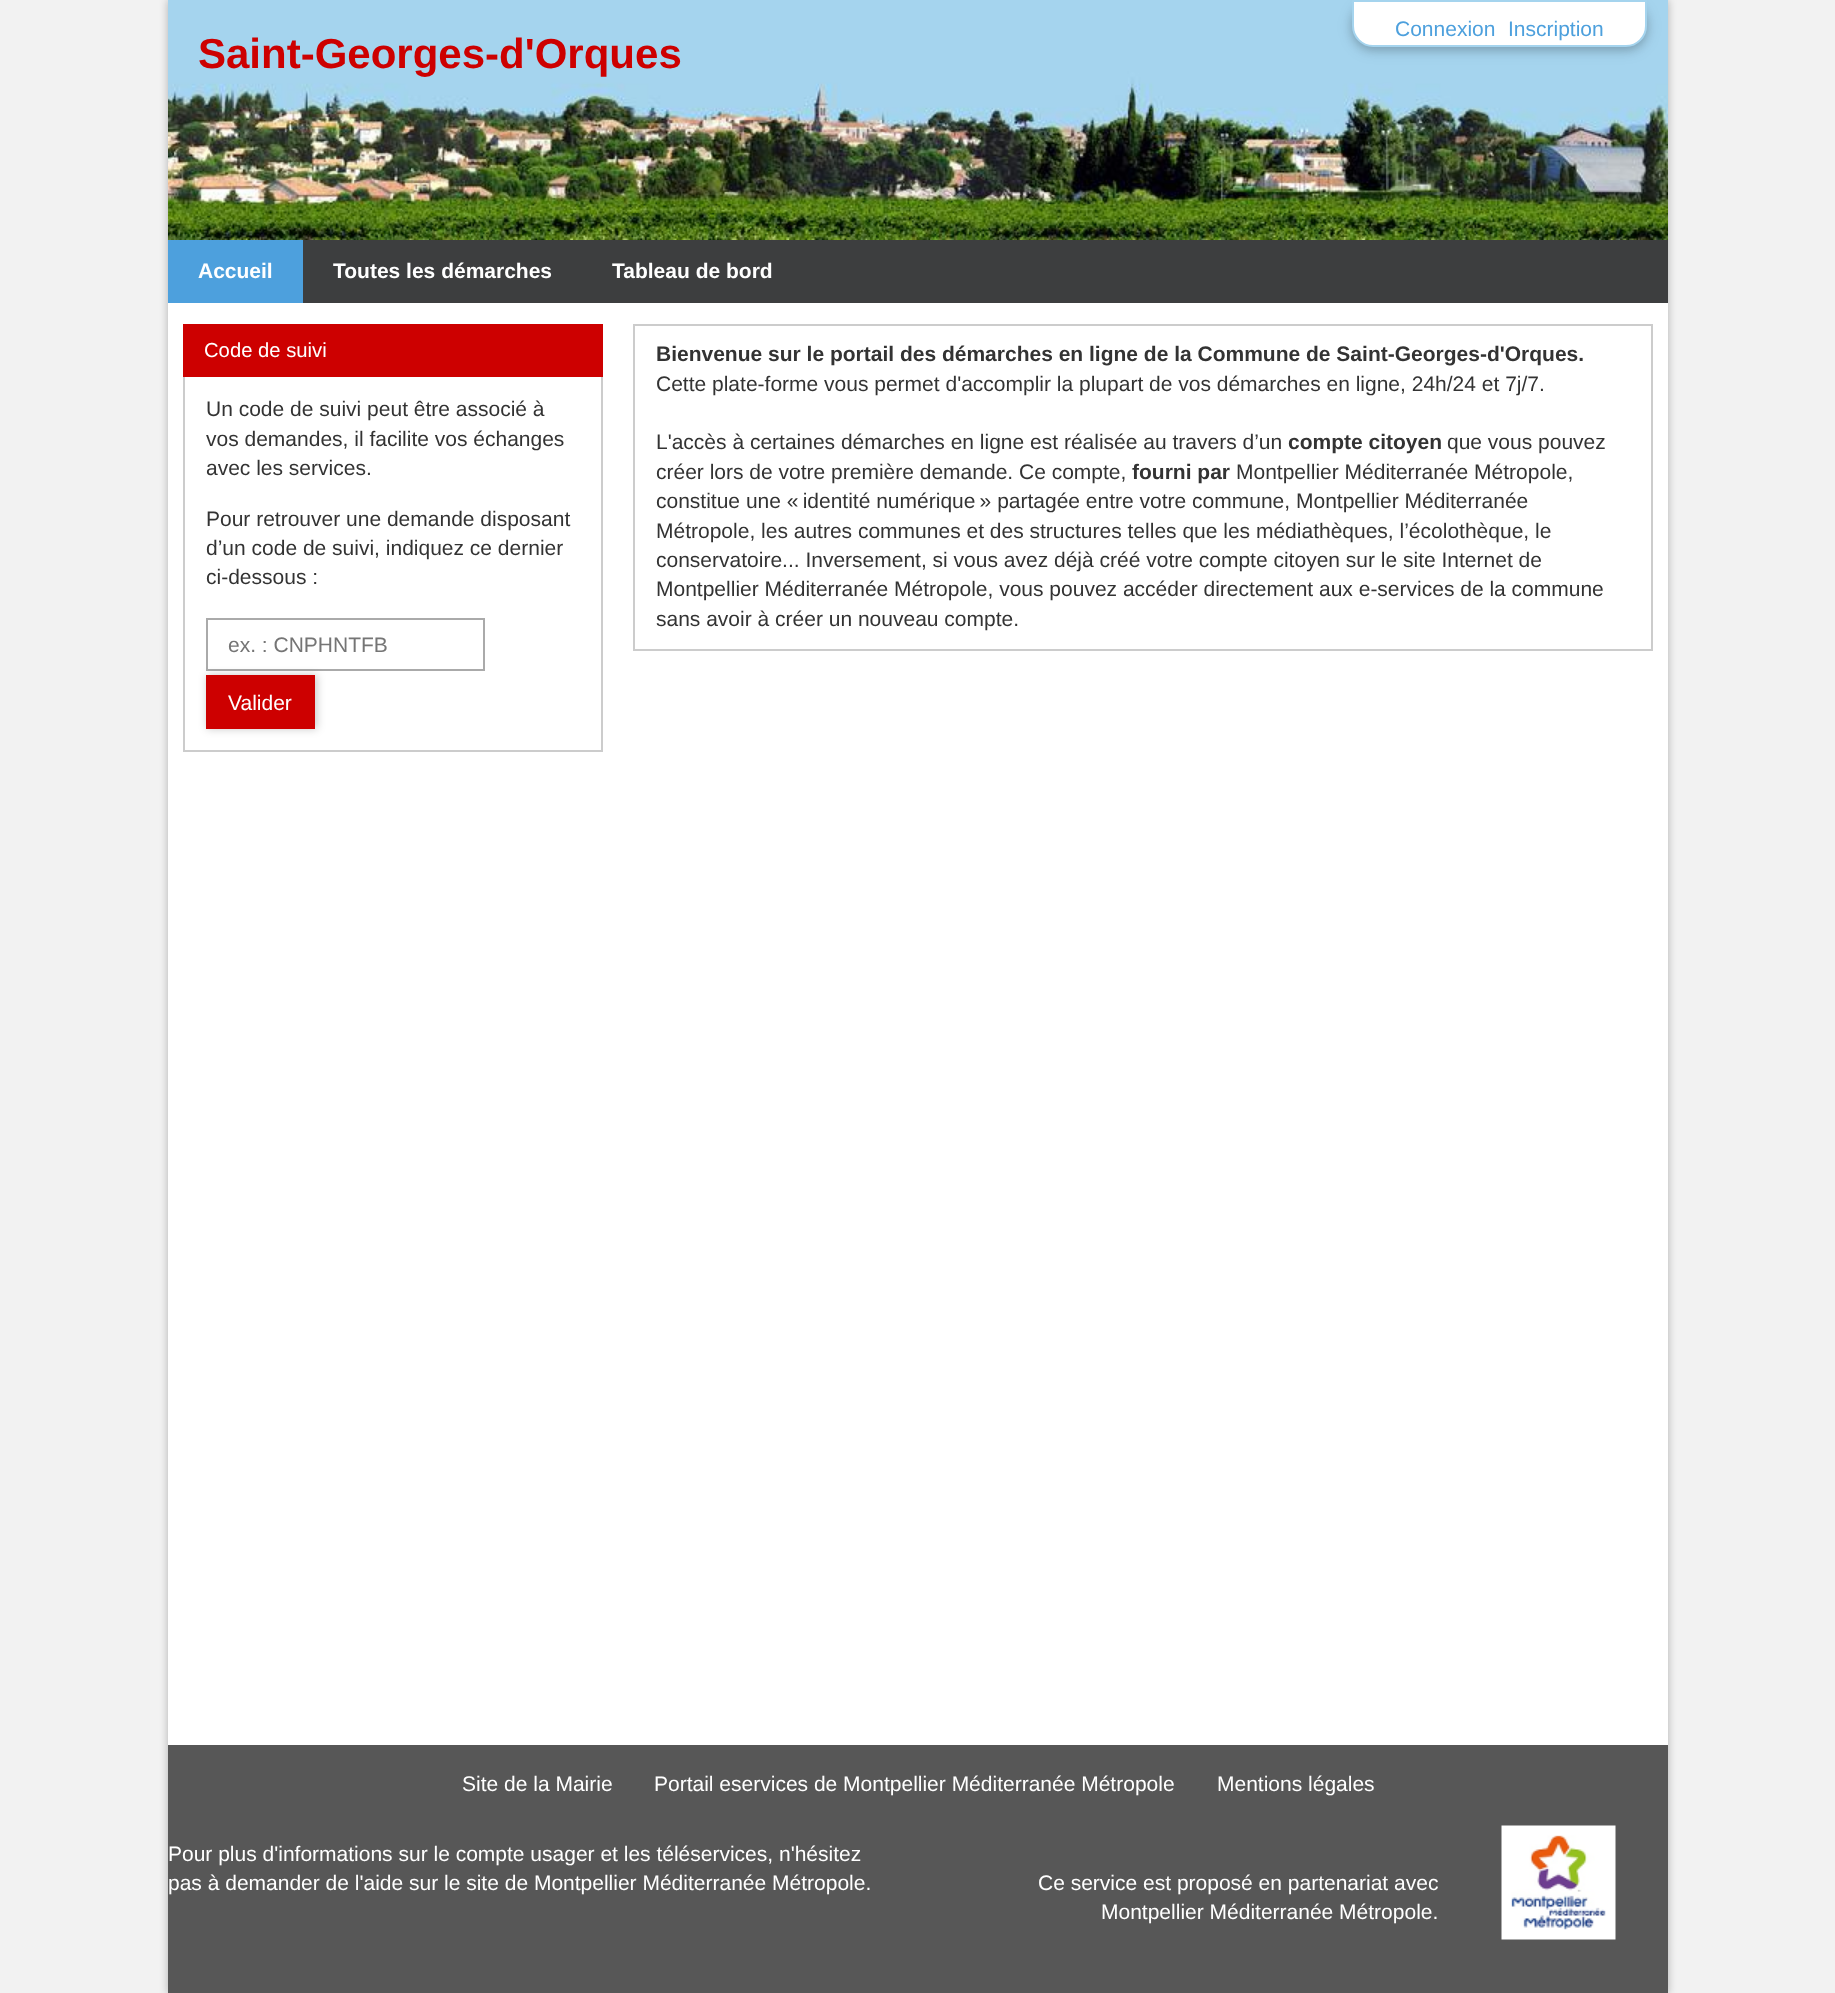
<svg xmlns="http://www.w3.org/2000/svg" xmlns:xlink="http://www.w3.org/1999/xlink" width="1835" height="1993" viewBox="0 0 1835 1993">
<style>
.cls-1{font:21px Liberation Sans;fill:#4da0dd}
.cls-2{font:bold 42px Liberation Sans;fill:#cd0000}
.cls-3{font:bold 21px Liberation Sans;fill:#ffffff}
.cls-4{font:20.25px Liberation Sans;fill:#ffffff}
.cls-5{font:21px Liberation Sans;fill:#333333}
.cls-6{font:21px Liberation Sans;fill:#757575}
.cls-7{font:21px Liberation Sans;fill:#ffffff}
.cls-8{font:bold 21px Liberation Sans;fill:#333333}
</style>
<rect width="100%" height="100%" fill="#f2f2f2"/>
<rect fill="#000000" fill-opacity="0.27" filter="blur(4px)" x="168" y="0" width="1500" height="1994"/>
<rect fill="#ffffff" x="168" y="303" width="1500" height="1442"/>
<image xlink:href="image0.png" x="168" y="0" width="1500" height="240"/>
<rect fill="#000000" fill-opacity="0.12" filter="blur(7.5px)" x="1352" y="3" width="295" height="47" rx="21"/>
<rect fill="#000000" fill-opacity="0.16" filter="blur(4px)" x="1352" y="3" width="295" height="47" rx="21"/>
<path fill="#ffffff" stroke="#a5d4ee" stroke-width="2" d="M1353 1H1646V26C1646 37 1637 46 1626 46H1373C1362 46 1353 37 1353 26Z"/>
<rect fill="#3d3e3f" x="303" y="240" width="1365" height="63"/>
<rect fill="#4da0dd" x="168" y="240" width="135" height="63"/>
<rect fill="none" stroke="#cccccc" stroke-width="2" x="184" y="325" width="418" height="426"/>
<rect fill="#cd0000" x="183" y="324" width="420" height="53"/>
<rect fill="none" stroke="#aaaaaa" stroke-width="2" x="207" y="619" width="277" height="51"/>
<rect fill="#000000" fill-opacity="0.21" filter="blur(4px)" x="207" y="675" width="110" height="54"/>
<rect fill="#cd0000" x="206" y="675" width="109" height="54"/>
<rect fill="none" stroke="#cccccc" stroke-width="2" x="634" y="325" width="1018" height="325"/>
<rect fill="#575757" x="168" y="1745" width="1500" height="248"/>
<image xlink:href="image1.png" x="1501" y="1825" width="115" height="115"/>
<text class="cls-1" x="1395" y="36">Connexion</text>
<text class="cls-1" x="1508" y="36">Inscription</text>
<text class="cls-2" x="198" y="68">Saint-Georges-d'Orques</text>
<text class="cls-3" x="198" y="278">Accueil</text>
<text class="cls-3" x="333" y="278">Toutes les démarches</text>
<text class="cls-3" x="612" y="278">Tableau de bord</text>
<text class="cls-4" x="204" y="357">Code de suivi</text>
<text class="cls-5"><tspan x="206" y="416">Un code de suivi peut être associé à</tspan><tspan x="206" y="446">vos demandes, il facilite vos échanges</tspan><tspan x="206" y="475">avec les services.</tspan></text>
<text class="cls-5"><tspan x="206" y="526">Pour retrouver une demande disposant</tspan><tspan x="206" y="555">d’un code de suivi, indiquez ce dernier</tspan><tspan x="206" y="584">ci-dessous :</tspan></text>
<text class="cls-6" x="228" y="652">ex. : CNPHNTFB</text>
<text class="cls-7" x="228" y="710">Valider</text>
<text class="cls-8" x="656" y="361">Bienvenue sur le portail des démarches en ligne de la Commune de Saint-Georges-d'Orques.</text>
<text class="cls-5" x="656" y="391">Cette plate-forme vous permet d'accomplir la plupart de vos démarches en ligne, 24h/24 et 7j/7.</text>
<text class="cls-5" x="656" y="449">L'accès à certaines démarches en ligne est réalisée au travers d’un</text>
<text class="cls-8" x="1288" y="449">compte citoyen</text>
<text class="cls-5" x="1447" y="449">que vous pouvez</text>
<text class="cls-5" x="656" y="479">créer lors de votre première demande. Ce compte,</text>
<text class="cls-8" x="1132" y="479">fourni par</text>
<text class="cls-5" x="1236" y="479">Montpellier Méditerranée Métropole,</text>
<text class="cls-5"><tspan x="656" y="508">constitue une « identité numérique » partagée entre votre commune, Montpellier Méditerranée</tspan><tspan x="656" y="538">Métropole, les autres communes et des structures telles que les médiathèques, l’écolothèque, le</tspan><tspan x="656" y="567">conservatoire... Inversement, si vous avez déjà créé votre compte citoyen sur le site Internet de</tspan><tspan x="656" y="596">Montpellier Méditerranée Métropole, vous pouvez accéder directement aux e-services de la commune</tspan><tspan x="656" y="626">sans avoir à créer un nouveau compte.</tspan></text>
<text class="cls-7" x="462" y="1791">Site de la Mairie</text>
<text class="cls-7" x="654" y="1791">Portail eservices de Montpellier Méditerranée Métropole</text>
<text class="cls-7" x="1217" y="1791">Mentions légales</text>
<text class="cls-7"><tspan x="168" y="1861">Pour plus d'informations sur le compte usager et les téléservices, n'hésitez</tspan><tspan x="168" y="1890">pas à demander de l'aide sur le site de Montpellier Méditerranée Métropole.</tspan></text>
<text class="cls-7" x="1038" y="1890">Ce service est proposé en partenariat avec</text>
<text class="cls-7" x="1101" y="1919">Montpellier Méditerranée Métropole.</text>
</svg>
